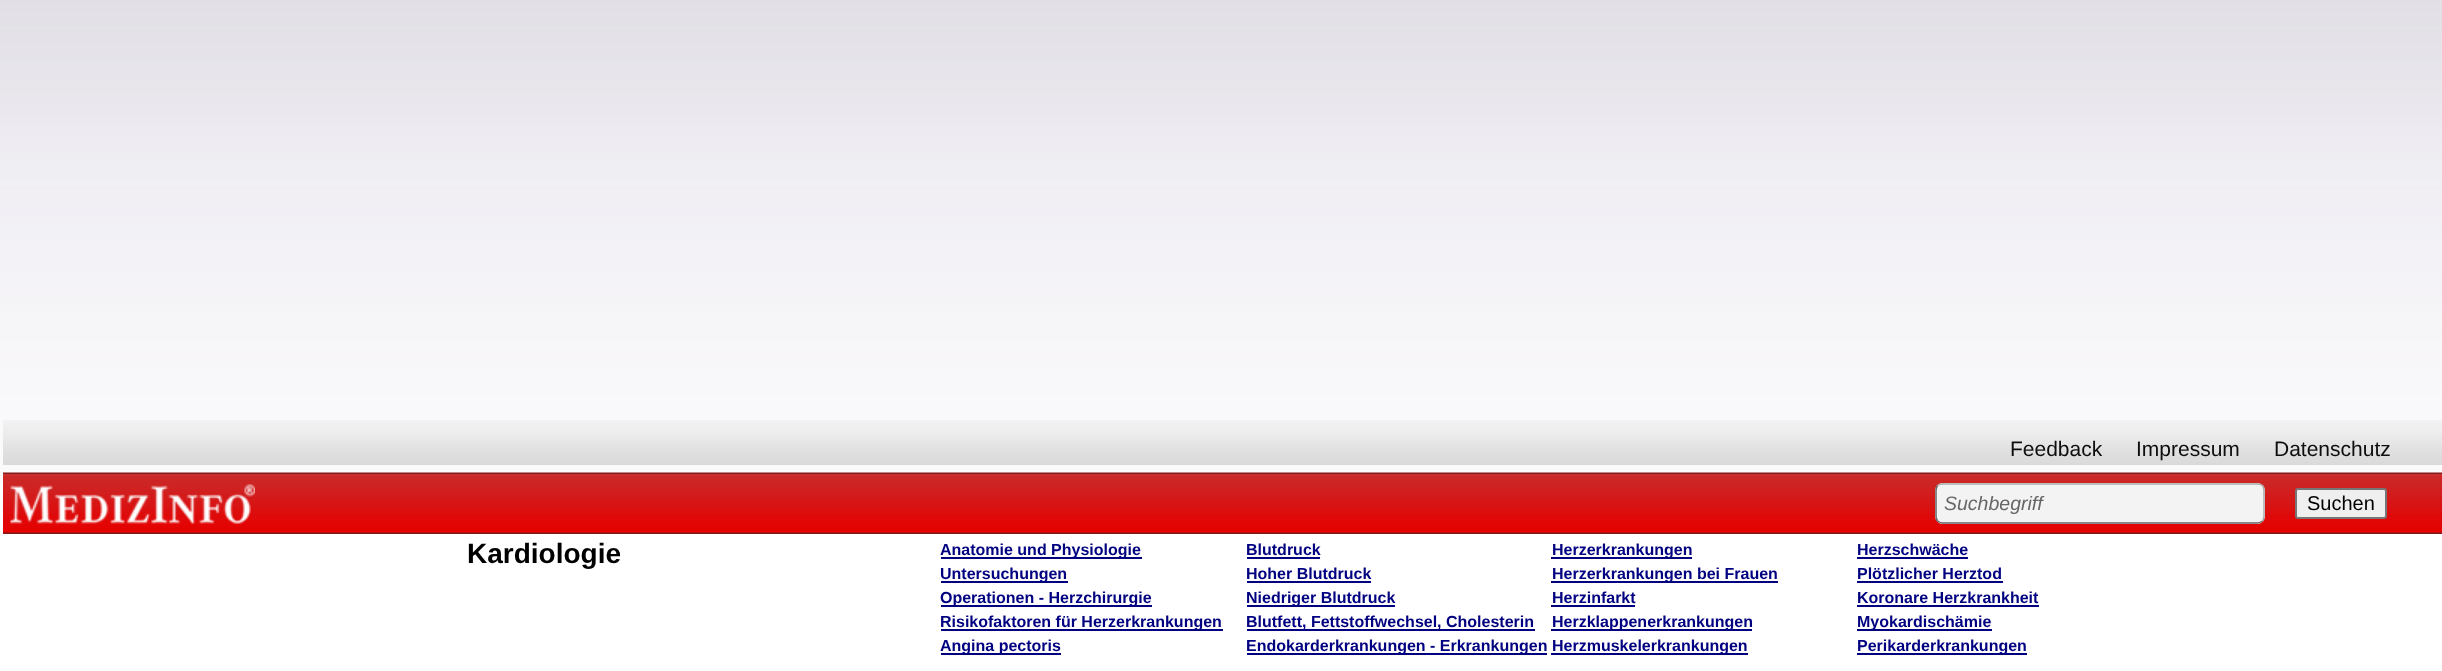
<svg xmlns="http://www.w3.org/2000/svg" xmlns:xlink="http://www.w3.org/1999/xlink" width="2442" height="671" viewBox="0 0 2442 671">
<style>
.cls-1{font:21px Liberation Sans;fill:#0e0e0e}
.cls-2{font:italic 19.5px Liberation Sans;fill:#666666}
.cls-3{font:20px Liberation Sans;fill:#000000}
.cls-4{font:bold 28px Liberation Sans;fill:#000000}
.cls-5{font:bold 16px Liberation Sans;fill:#000080}
</style>
<rect width="100%" height="100%" fill="#ffffff"/>
<image xlink:href="image0.png" x="0" y="0" width="2442" height="484"/>
<image xlink:href="image1.png" x="3" y="420" width="2439" height="45"/>
<image xlink:href="image2.png" x="3" y="472" width="2439" height="62"/>
<image xlink:href="image3.png" x="10" y="484" width="245" height="40"/>
<rect fill="#f3f3f3" x="1935" y="483" width="330" height="41" rx="8"/>
<path fill="none" stroke="#aaaaaa" stroke-width="1.5" d="M1937.5 485.5C1939 484.5 1940.5 484 1942.5 484H2257.5C2259.5 484 2261 484.5 2262.5 485.5C2263.5 487 2264 488.5 2264 490.5V516C2264 518 2263.5 519.5 2262.5 521"/>
<path fill="none" stroke="#666666" stroke-width="1.5" d="M2262.5 521C2261 522 2259.5 523 2257.5 523H1942.5C1940.5 523 1939 522 1937.5 521C1936.5 519.5 1936 518 1936 516V490.5C1936 488.5 1936.5 487 1937.5 485.5"/>
<rect fill="#efefef" stroke="#767676" stroke-width="2" x="2296" y="489" width="90" height="29" rx="2"/>
<rect fill="#000080" x="941" y="557" width="201" height="2"/>
<rect fill="#000080" x="941" y="581" width="127" height="2"/>
<rect fill="#000080" x="941" y="605" width="211" height="2"/>
<rect fill="#000080" x="941" y="629" width="282" height="2"/>
<rect fill="#000080" x="941" y="653" width="120" height="2"/>
<rect fill="#000080" x="1247" y="557" width="73" height="2"/>
<rect fill="#000080" x="1247" y="581" width="124" height="2"/>
<rect fill="#000080" x="1247" y="605" width="148" height="2"/>
<rect fill="#000080" x="1247" y="629" width="288" height="2"/>
<rect fill="#000080" x="1247" y="653" width="300" height="2"/>
<rect fill="#000080" x="1551" y="557" width="141" height="2"/>
<rect fill="#000080" x="1551" y="581" width="227" height="2"/>
<rect fill="#000080" x="1551" y="605" width="84" height="2"/>
<rect fill="#000080" x="1551" y="629" width="201" height="2"/>
<rect fill="#000080" x="1551" y="653" width="197" height="2"/>
<rect fill="#000080" x="1857" y="557" width="111" height="2"/>
<rect fill="#000080" x="1857" y="581" width="146" height="2"/>
<rect fill="#000080" x="1857" y="605" width="182" height="2"/>
<rect fill="#000080" x="1857" y="629" width="135" height="2"/>
<rect fill="#000080" x="1857" y="653" width="170" height="2"/>
<text class="cls-1" x="2010" y="456">Feedback</text>
<text class="cls-1" x="2136" y="456">Impressum</text>
<text class="cls-1" x="2274" y="456">Datenschutz</text>
<text class="cls-2" x="1944" y="510">Suchbegriff</text>
<text class="cls-3" x="2307" y="510">Suchen</text>
<text class="cls-4" x="467" y="563">Kardiologie</text>
<text class="cls-5"><tspan x="940" y="555">Anatomie und Physiologie</tspan><tspan x="940" y="579">Untersuchungen</tspan><tspan x="940" y="603">Operationen - Herzchirurgie</tspan><tspan x="940" y="627">Risikofaktoren für Herzerkrankungen</tspan><tspan x="940" y="651">Angina pectoris</tspan></text>
<text class="cls-5"><tspan x="1246" y="555">Blutdruck</tspan><tspan x="1246" y="579">Hoher Blutdruck</tspan><tspan x="1246" y="603">Niedriger Blutdruck</tspan><tspan x="1246" y="627">Blutfett, Fettstoffwechsel, Cholesterin</tspan><tspan x="1246" y="651">Endokarderkrankungen - Erkrankungen</tspan></text>
<text class="cls-5"><tspan x="1552" y="555">Herzerkrankungen</tspan><tspan x="1552" y="579">Herzerkrankungen bei Frauen</tspan><tspan x="1552" y="603">Herzinfarkt</tspan><tspan x="1552" y="627">Herzklappenerkrankungen</tspan><tspan x="1552" y="651">Herzmuskelerkrankungen</tspan></text>
<text class="cls-5"><tspan x="1857" y="555">Herzschwäche</tspan><tspan x="1857" y="579">Plötzlicher Herztod</tspan><tspan x="1857" y="603">Koronare Herzkrankheit</tspan><tspan x="1857" y="627">Myokardischämie</tspan><tspan x="1857" y="651">Perikarderkrankungen</tspan></text>
</svg>
